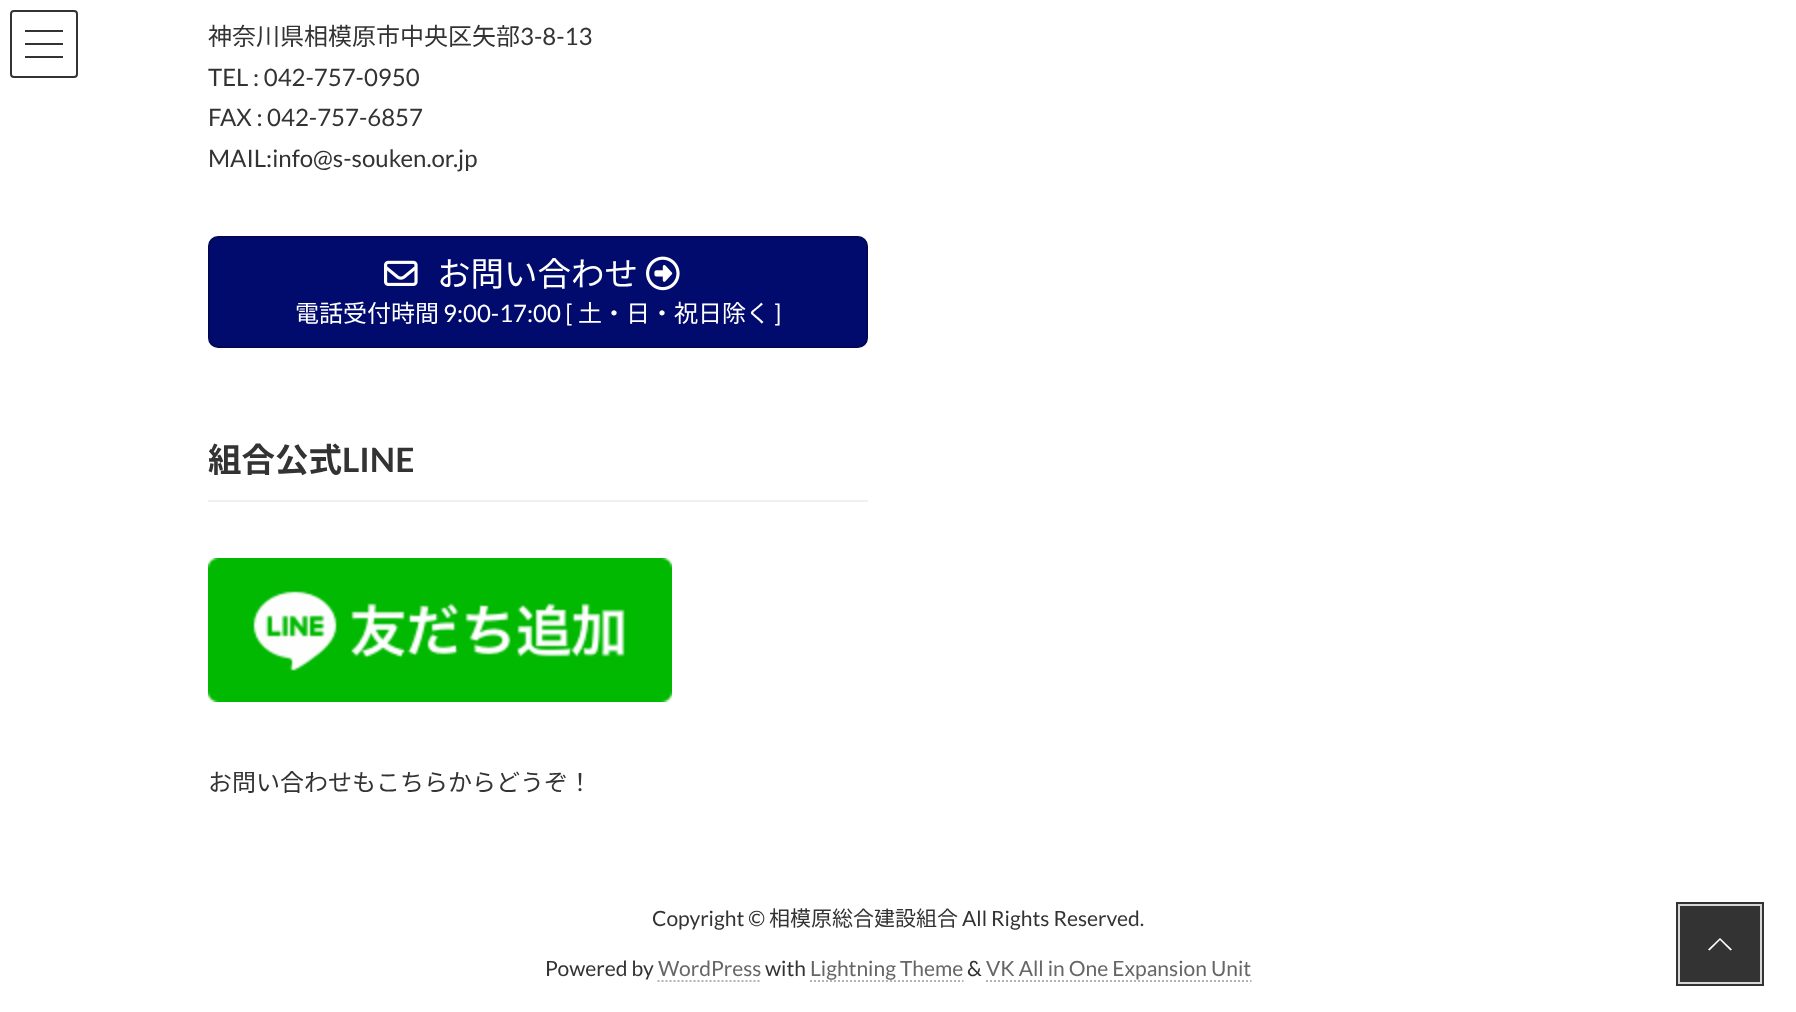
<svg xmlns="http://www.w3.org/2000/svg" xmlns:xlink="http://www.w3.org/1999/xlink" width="1796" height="1012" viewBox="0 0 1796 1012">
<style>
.cls-1{font:24px Noto Sans JP;fill:#333333}
.cls-2{font:24px Lato;fill:#333333}
.cls-3{font:33.5px Noto Sans JP;fill:#ffffff}
.cls-4{font:24px Noto Sans JP;fill:#ffffff}
.cls-5{font:24px Lato;fill:#ffffff}
.cls-6{font:bold 33.5px Noto Sans JP;fill:#333333}
.cls-7{font:bold 33.5px Lato;fill:#333333}
.cls-8{font:21px Lato;fill:#333333}
.cls-9{font:21px Noto Sans JP;fill:#333333}
.cls-10{font:21px Lato;fill:#666666}
</style>
<rect width="100%" height="100%" fill="#ffffff"/>
<rect fill="#333333" x="25" y="30" width="38" height="2"/>
<rect fill="#333333" x="25" y="43" width="38" height="2"/>
<rect fill="#333333" x="25" y="56" width="38" height="2"/>
<rect fill="none" stroke="#333333" stroke-width="2" x="11" y="11" width="66" height="66" rx="3"/>
<rect fill="#010a6d" stroke="#010857" stroke-width="2" x="209" y="237" width="658" height="110" rx="9"/>
<image xlink:href="image0.png" x="384" y="260" width="34" height="26"/>
<image xlink:href="image1.png" x="646" y="256" width="34" height="35"/>
<rect fill="#f0f0f0" x="208" y="500" width="660" height="2"/>
<image xlink:href="image2.png" x="208" y="558" width="464" height="144"/>
<path fill="none" stroke="#b3b3b3" stroke-width="2" stroke-dasharray="2 2" d="M657.5 981H761"/>
<path fill="none" stroke="#b3b3b3" stroke-width="2" stroke-dasharray="2 2" d="M810 981H963.5"/>
<path fill="none" stroke="#b3b3b3" stroke-width="2" stroke-dasharray="2 2" d="M986 981H1251.5"/>
<rect fill="none" stroke="#333333" stroke-width="4" x="1678" y="904" width="84" height="80"/>
<rect fill="none" stroke="#d6d6d6" stroke-width="2" x="1679" y="905" width="82" height="78"/>
<rect fill="#333333" x="1680" y="906" width="80" height="76"/>
<path fill="#ffffff" d="M1732 949.5L1730.5 950.5L1720 940L1709.5 950.5L1708 949.5L1720 938Z"/>
<text class="cls-1" x="208" y="45">神奈川県相模原市中央区矢部</text>
<text class="cls-2" x="520" y="45">3-8-13</text>
<text class="cls-2"><tspan x="208" y="86">TEL : 042-757-0950</tspan><tspan x="208" y="126">FAX : 042-757-6857</tspan><tspan x="208" y="167">MAIL:info@s-souken.or.jp</tspan></text>
<text class="cls-3" x="437" y="286">お問い合わせ</text>
<text class="cls-4" x="295" y="322">電話受付時間</text>
<text class="cls-5" x="443" y="322">9:00-17:00 [</text>
<text class="cls-4" x="578" y="322">土・日・祝日除く</text>
<text class="cls-5" x="774" y="322">]</text>
<text class="cls-6" x="208" y="472">組合公式</text>
<text class="cls-7" x="342" y="472">LINE</text>
<text class="cls-1" x="208" y="791">お問い合わせもこちらからどうぞ！</text>
<text class="cls-8" x="652" y="926">Copyright ©</text>
<text class="cls-9" x="769" y="926">相模原総合建設組合</text>
<text class="cls-8" x="962" y="926">All Rights Reserved.</text>
<text class="cls-8" x="545" y="976">Powered by</text>
<text class="cls-10" x="658" y="976">WordPress</text>
<text class="cls-8" x="765" y="976">with</text>
<text class="cls-10" x="810" y="976">Lightning Theme</text>
<text class="cls-8" x="967" y="976">&amp;</text>
<text class="cls-10" x="986" y="976">VK All in One Expansion Unit</text>
</svg>
